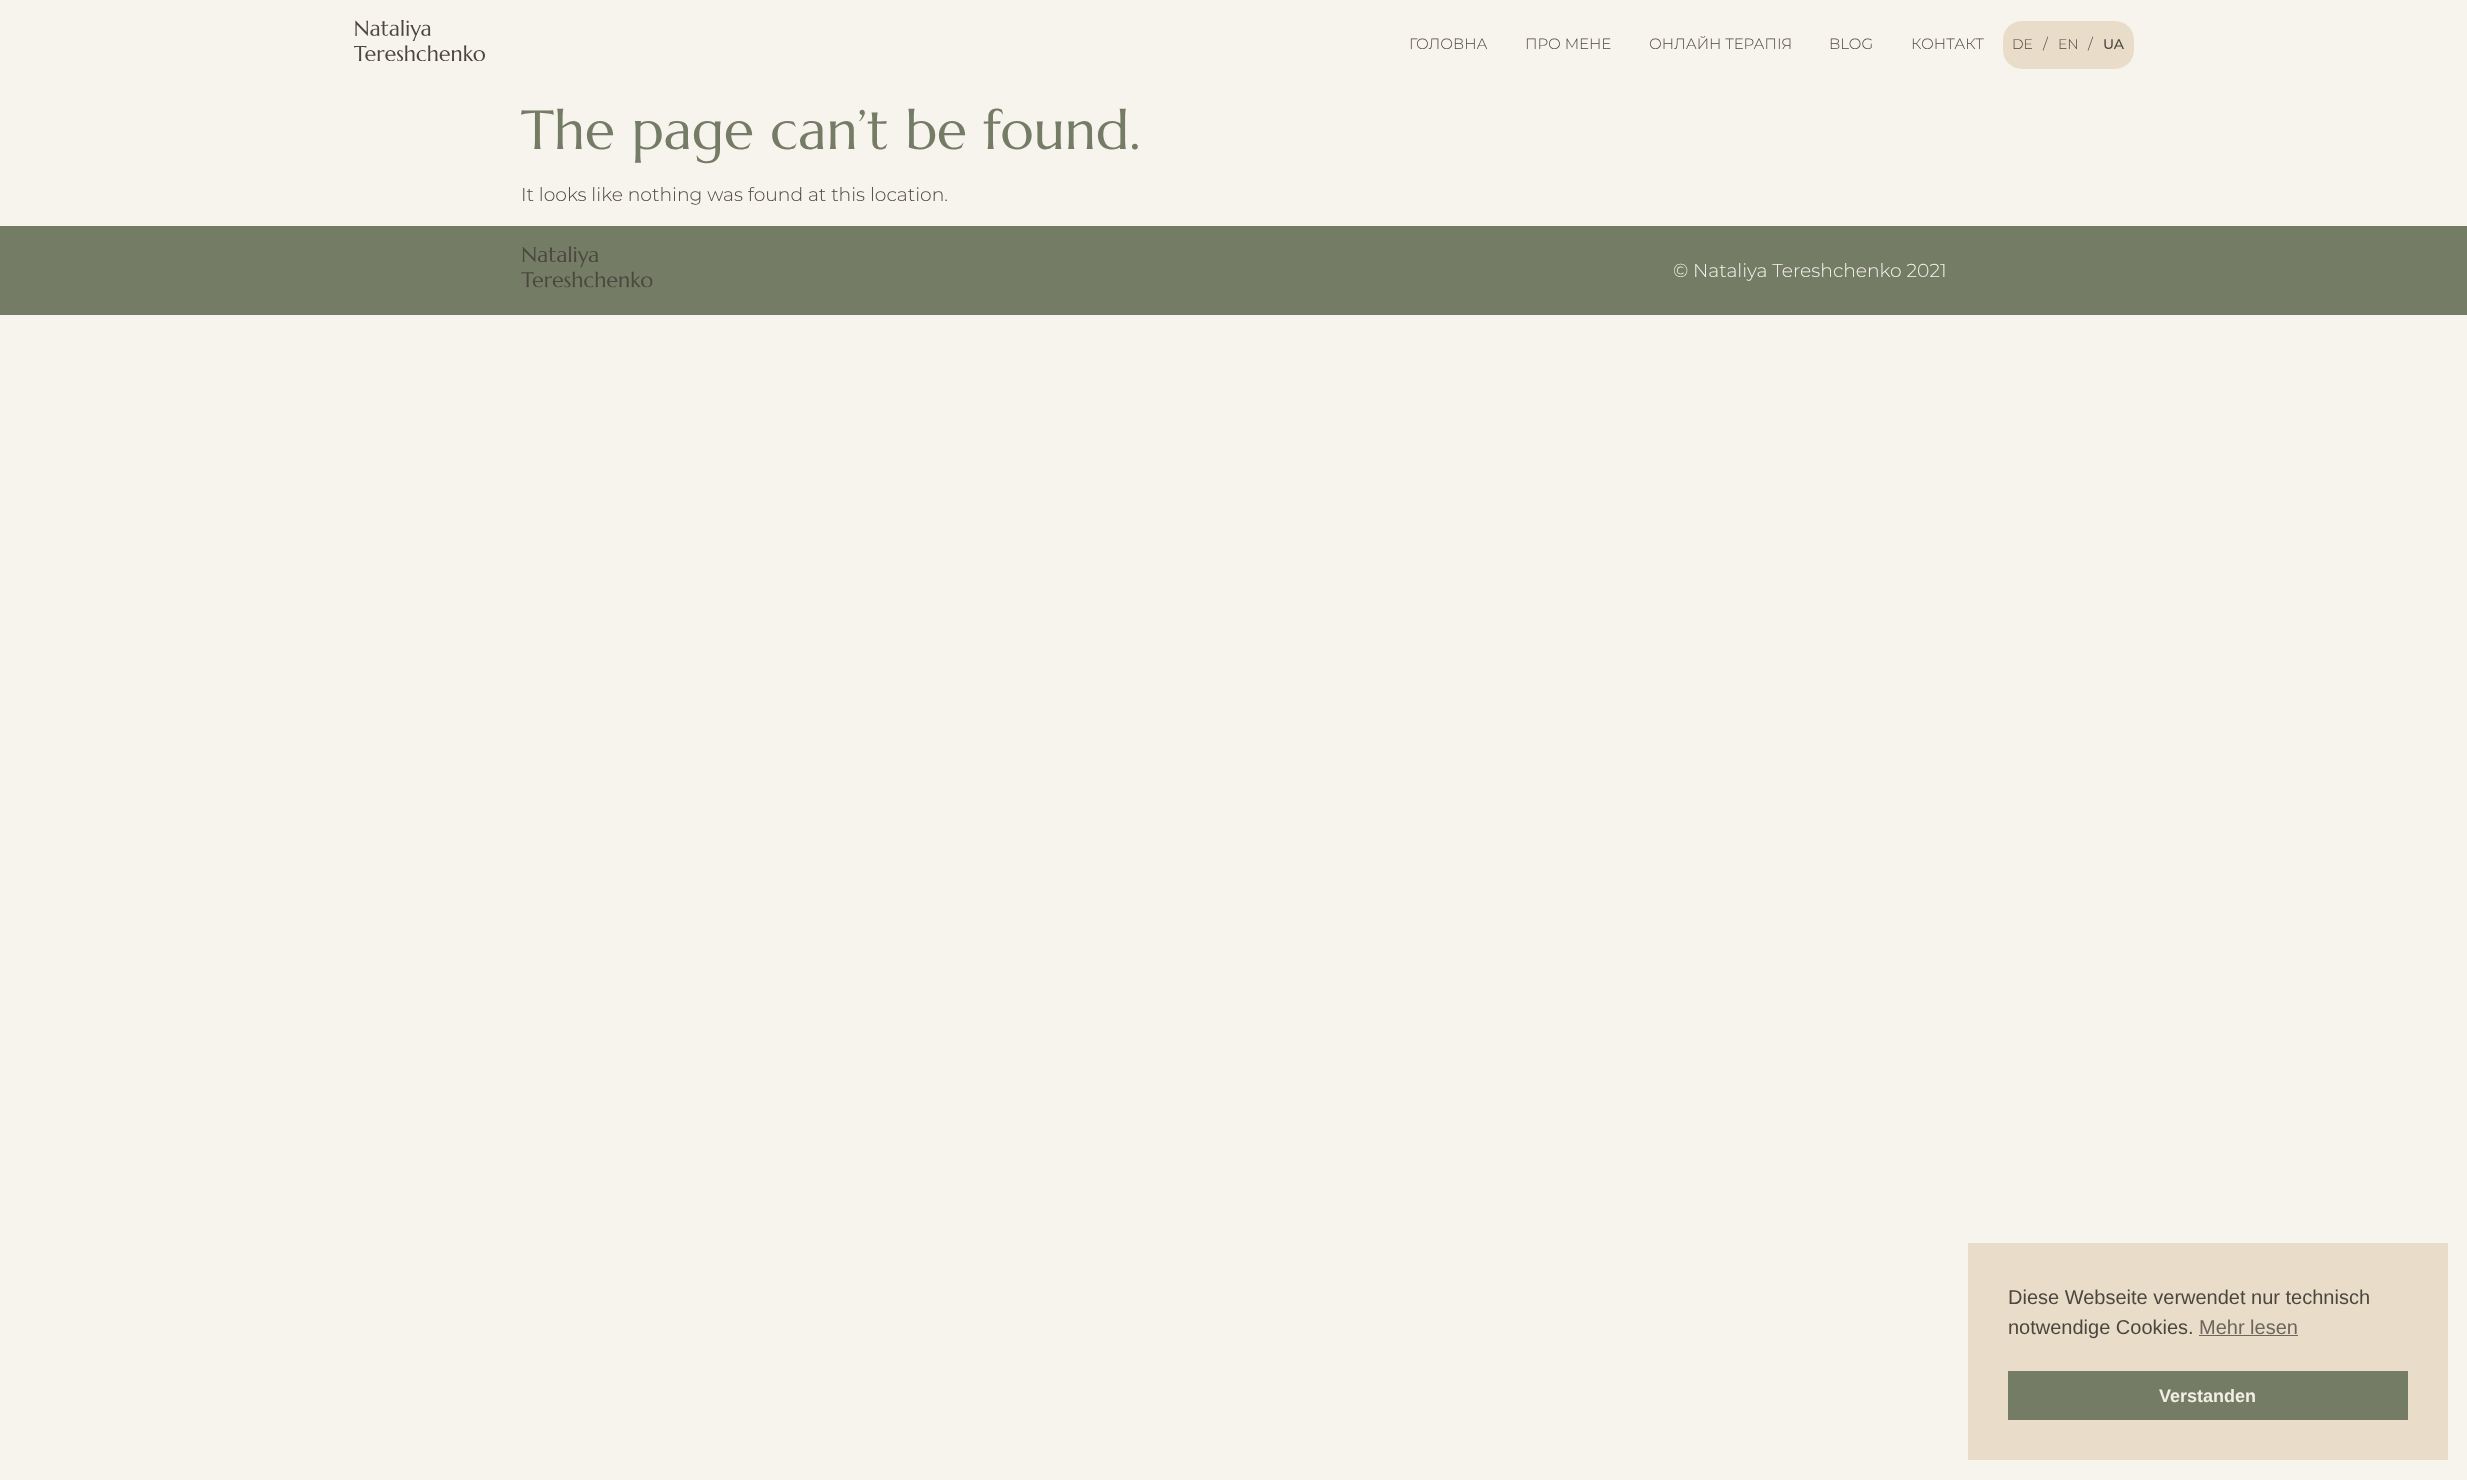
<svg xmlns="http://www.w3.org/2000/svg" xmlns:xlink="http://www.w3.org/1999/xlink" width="2467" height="1480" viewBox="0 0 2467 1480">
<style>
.cls-1{font:300 15px Montserrat;fill:#4b473f}
.cls-2{font:300 14px Montserrat;fill:#4b473f}
.cls-3{font:500 14px Montserrat;fill:#4b473f}
.cls-4{font:55px Marcellus;fill:#747c65}
.cls-5{font:300 18.75px Montserrat;fill:#4b473f}
.cls-6{font:300 18.75px Montserrat;fill:#f7f3ed}
.cls-7{font:20px Liberation Sans;fill:#4b473f}
.cls-8{font:20px Liberation Sans;fill:#6b655b}
.cls-9{font:bold 18px Liberation Sans;fill:#f4eee3}
</style>
<rect width="100%" height="100%" fill="#f7f3ed"/>
<image xlink:href="image0.png" x="354" y="20" width="131" height="41"/>
<path fill="#e9ddca" d="M2022 21H2048V69H2022C2011.5 69 2003 60.5 2003 50V40C2003 29.5 2011.5 21 2022 21Z"/>
<rect fill="#747c65" x="0" y="226" width="2467" height="89"/>
<image xlink:href="image1.png" x="521" y="246" width="132" height="42"/>
<rect fill="#e9ddca" x="1968" y="1243" width="480" height="217"/>
<rect fill="#6b655b" x="2199" y="1335" width="99" height="1"/>
<rect fill="#747c65" x="2008" y="1371" width="400" height="49"/>
<text class="cls-1" x="1409" y="49">ГОЛОВНА</text>
<text class="cls-1" x="1525" y="49">ПРО МЕНЕ</text>
<text class="cls-1" x="1649" y="49">ОНЛАЙН ТЕРАПІЯ</text>
<text class="cls-1" x="1829" y="49">BLOG</text>
<text class="cls-1" x="1911" y="49">КОНТАКТ</text>
<text class="cls-2" x="2012" y="49">DE</text>
<text class="cls-1" x="2043" y="49">/</text>
<rect fill="#e9ddca" x="2048" y="21" width="45" height="48"/>
<text class="cls-2" x="2058" y="49">EN</text>
<text class="cls-1" x="2088" y="49">/</text>
<path fill="#e9ddca" d="M2093 21H2115C2125.5 21 2134 29.5 2134 40V50C2134 60.5 2125.5 69 2115 69H2093Z"/>
<text class="cls-3" x="2103" y="49">UA</text>
<text class="cls-4" x="521" y="149">The page can’t be found.</text>
<text class="cls-5" x="521" y="201">It looks like nothing was found at this location.</text>
<text class="cls-6" x="1673" y="277">© Nataliya Tereshchenko 2021</text>
<text class="cls-7"><tspan x="2008" y="1304">Diese Webseite verwendet nur technisch</tspan><tspan x="2008" y="1334">notwendige Cookies.</tspan></text>
<text class="cls-8" x="2199" y="1334">Mehr lesen</text>
<text class="cls-9" x="2159" y="1402">Verstanden</text>
</svg>
